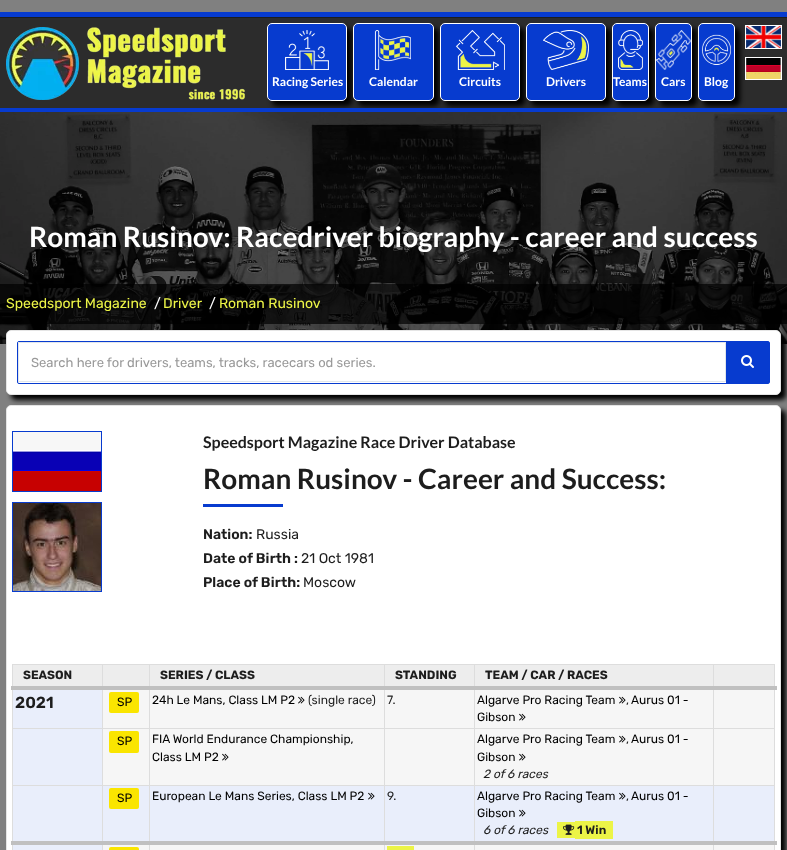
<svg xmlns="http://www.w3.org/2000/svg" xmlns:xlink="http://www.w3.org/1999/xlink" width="787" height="850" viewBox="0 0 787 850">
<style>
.cls-1{font:bold 12px Lato;fill:#ffffff}
.cls-2{font:bold 28px Lato;fill:#ffffff}
.cls-3{font:300 14px 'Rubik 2';fill:#ecf447}
.cls-4{font:300 14px 'Rubik 2';fill:#ffffff}
.cls-5{font:300 13px 'Rubik 2';fill:#999999}
.cls-6{font:bold 16px Lato;fill:#1d1d1d}
.cls-7{font:bold 28px Lato;fill:#1d1d1d}
.cls-8{font:600 14px Rubik;fill:#1d1d1d}
.cls-9{font:300 14px 'Rubik 2';fill:#1d1d1d}
.cls-10{font:300 12px Rubik;fill:#1d1d1d}
.cls-11{font:600 16px Rubik;fill:#1d1d1d}
.cls-12{font:300 12px 'Rubik 2';fill:#000000}
.cls-13{font:300 12px 'Rubik 2';fill:#1d1d1d}
.cls-14{font:italic 300 12px Rubik;fill:#1d1d1d}
.cls-15{font:600 12px Rubik;fill:#1d1d1d}
</style>
<rect width="100%" height="100%" fill="#808080"/>
<rect fill="#073bcf" x="0" y="12" width="787" height="5"/>
<rect fill="#1d1d1d" x="0" y="17" width="787" height="1"/>
<rect fill="#2c2c2c" x="0" y="18" width="787" height="90"/>
<image xlink:href="image0.png" x="6" y="27" width="239" height="73"/>
<image xlink:href="image10.png" x="0" y="112" width="787" height="232"/>
<rect fill="#000000" filter="blur(2.5px)" x="703" y="28" width="37" height="78" rx="5"/>
<rect fill="none" stroke="#ffffff" x="745.5" y="25.5" width="36" height="23"/>
<image xlink:href="image1.png" x="746" y="26" width="35" height="22"/>
<rect fill="none" stroke="#ffffff" x="745.5" y="57.5" width="36" height="22"/>
<image xlink:href="image2.png" x="746" y="58" width="35" height="21"/>
<rect fill="#000000" filter="blur(2.5px)" x="272" y="28" width="80" height="78" rx="5"/>
<rect fill="#073bcf" stroke="#ffffff" x="267.5" y="23.5" width="79" height="77" rx="4.5"/>
<image xlink:href="image3.png" x="285" y="30" width="44" height="40"/>
<rect fill="#000000" filter="blur(2.5px)" x="358" y="28" width="81" height="78" rx="5"/>
<rect fill="#073bcf" stroke="#ffffff" x="353.5" y="23.5" width="80" height="77" rx="4.5"/>
<image xlink:href="image4.png" x="374" y="30" width="37" height="40"/>
<rect fill="#000000" filter="blur(2.5px)" x="445" y="28" width="80" height="78" rx="5"/>
<rect fill="#073bcf" stroke="#ffffff" x="440.5" y="23.5" width="79" height="77" rx="4.5"/>
<image xlink:href="image5.png" x="455" y="30" width="50" height="40"/>
<rect fill="#000000" filter="blur(2.5px)" x="531" y="28" width="80" height="78" rx="5"/>
<rect fill="#073bcf" stroke="#ffffff" x="526.5" y="23.5" width="79" height="77" rx="4.5"/>
<image xlink:href="image6.png" x="543" y="30" width="46" height="40"/>
<rect fill="#000000" filter="blur(2.5px)" x="617" y="28" width="37" height="78" rx="5"/>
<rect fill="#073bcf" stroke="#ffffff" x="612.5" y="23.5" width="36" height="77" rx="4.5"/>
<image xlink:href="image7.png" x="618" y="30" width="25" height="40"/>
<rect fill="#000000" filter="blur(2.5px)" x="660" y="28" width="37" height="78" rx="5"/>
<rect fill="#073bcf" stroke="#ffffff" x="655.5" y="23.5" width="36" height="77" rx="4.5"/>
<image xlink:href="image8.png" x="656" y="30" width="35" height="40"/>
<rect fill="#073bcf" stroke="#ffffff" x="698.5" y="23.5" width="36" height="77" rx="4.5"/>
<image xlink:href="image9.png" x="701" y="34" width="30" height="31"/>
<rect fill="#073bcf" x="0" y="108" width="787" height="4"/>
<rect fill="#000000" fill-opacity="0.7" x="0" y="284" width="787" height="40"/>
<rect fill="#000000" filter="blur(2.5px)" x="11" y="410" width="775" height="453" rx="5"/>
<rect fill="#ffffff" stroke="#e5e5e5" x="6.5" y="405.5" width="774" height="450" rx="4.5"/>
<rect fill="#000000" filter="blur(2.5px)" x="11" y="335" width="775" height="65" rx="5"/>
<rect fill="#ffffff" stroke="#e5e5e5" x="6.5" y="330.5" width="774" height="64" rx="4.5"/>
<rect fill="none" stroke="#073bcf" x="17.5" y="341.5" width="752" height="42" rx="1.5"/>
<rect fill="none" stroke="#e1e6eb" x="18.5" y="342.5" width="707" height="39"/>
<rect fill="#073bcf" x="726" y="342" width="43" height="41"/>
<image xlink:href="image11.png" x="741" y="355" width="13" height="13"/>
<rect fill="none" stroke="#073bcf" x="12.5" y="431.5" width="89" height="60"/>
<image xlink:href="image12.png" x="13" y="432" width="88" height="59"/>
<rect fill="none" stroke="#073bcf" x="12.5" y="502.5" width="89" height="89"/>
<image xlink:href="image13.png" x="13" y="503" width="88" height="88"/>
<rect fill="#073bcf" x="203" y="504" width="80" height="3"/>
<rect fill="#dddddd" x="12" y="664" width="763" height="1"/>
<rect fill="#f6f6f6" x="103" y="845" width="672" height="5"/>
<rect fill="#dddddd" x="774" y="664" width="1" height="186"/>
<rect fill="#dddddd" x="12" y="664" width="1" height="186"/>
<rect fill="#e9eefb" x="13" y="845" width="90" height="5"/>
<rect fill="#e9eefb" x="13" y="690" width="89" height="151"/>
<rect fill="#dddddd" x="12" y="728" width="763" height="1"/>
<rect fill="#dddddd" x="12" y="785" width="763" height="1"/>
<rect fill="#dddddd" x="102" y="664" width="1" height="186"/>
<rect fill="#dddddd" x="149" y="664" width="1" height="186"/>
<rect fill="#dddddd" x="384" y="664" width="1" height="186"/>
<rect fill="#dddddd" x="474" y="664" width="1" height="186"/>
<rect fill="#dddddd" x="713" y="664" width="1" height="186"/>
<rect fill="#c0c0c0" x="11" y="841" width="766" height="4"/>
<rect fill="#fae500" x="109" y="847" width="30" height="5" rx="2"/>
<rect fill="#ecf447" x="387" y="846" width="27" height="4"/>
<rect fill="#ededed" x="13" y="665" width="89" height="21"/>
<rect fill="#ededed" x="103" y="665" width="46" height="21"/>
<rect fill="#ededed" x="150" y="665" width="234" height="21"/>
<rect fill="#ededed" x="385" y="665" width="89" height="21"/>
<rect fill="#ededed" x="475" y="665" width="238" height="21"/>
<rect fill="#ededed" x="714" y="665" width="60" height="21"/>
<rect fill="#c0c0c0" x="11" y="686" width="766" height="4"/>
<rect fill="#f6f6f6" x="103" y="690" width="46" height="38"/>
<rect fill="#fae500" x="109" y="692" width="30" height="21" rx="2"/>
<rect fill="#f6f6f6" x="150" y="690" width="234" height="38"/>
<image xlink:href="image14.png" x="298" y="696" width="7" height="8"/>
<rect fill="#f6f6f6" x="385" y="690" width="89" height="38"/>
<rect fill="#f6f6f6" x="475" y="690" width="238" height="38"/>
<image xlink:href="image14.png" x="619" y="696" width="7" height="8"/>
<image xlink:href="image14.png" x="519" y="713" width="7" height="8"/>
<rect fill="#f6f6f6" x="714" y="690" width="60" height="38"/>
<rect fill="#f6f6f6" x="103" y="729" width="46" height="56"/>
<rect fill="#fae500" x="109" y="731" width="30" height="22" rx="2"/>
<rect fill="#f6f6f6" x="150" y="729" width="234" height="56"/>
<image xlink:href="image14.png" x="222" y="753" width="7" height="8"/>
<rect fill="#f6f6f6" x="385" y="729" width="89" height="56"/>
<rect fill="#f6f6f6" x="475" y="729" width="238" height="56"/>
<image xlink:href="image14.png" x="619" y="735" width="7" height="8"/>
<image xlink:href="image14.png" x="519" y="753" width="7" height="8"/>
<rect fill="#f6f6f6" x="714" y="729" width="60" height="56"/>
<rect fill="#e9eefb" x="103" y="786" width="46" height="55"/>
<rect fill="#fae500" x="109" y="788" width="30" height="21" rx="2"/>
<rect fill="#e9eefb" x="150" y="786" width="234" height="55"/>
<image xlink:href="image15.png" x="368" y="792" width="7" height="8"/>
<rect fill="#e9eefb" x="385" y="786" width="89" height="55"/>
<rect fill="#e9eefb" x="475" y="786" width="238" height="55"/>
<image xlink:href="image15.png" x="619" y="792" width="7" height="8"/>
<image xlink:href="image15.png" x="519" y="809" width="7" height="8"/>
<rect fill="#ecf447" x="557" y="822" width="18" height="16"/>
<rect fill="#ecf447" x="575" y="821" width="38" height="18"/>
<image xlink:href="image16.png" x="563" y="824" width="12" height="11"/>
<rect fill="#e9eefb" x="714" y="786" width="60" height="55"/>
<text class="cls-1" x="272" y="86">Racing Series</text>
<text class="cls-1" x="369" y="86">Calendar</text>
<text class="cls-1" x="459" y="86">Circuits</text>
<text class="cls-1" x="546" y="86">Drivers</text>
<text class="cls-1" x="613" y="86">Teams</text>
<text class="cls-1" x="661" y="86">Cars</text>
<text class="cls-1" x="704" y="86">Blog</text>
<text class="cls-2" x="29" y="247">Roman Rusinov: Racedriver biography - career and success</text>
<text class="cls-3" x="6" y="308">Speedsport Magazine</text>
<text class="cls-4" x="154" y="308">/</text>
<text class="cls-3" x="163" y="308">Driver</text>
<text class="cls-4" x="209" y="308">/</text>
<text class="cls-3" x="219" y="308">Roman Rusinov</text>
<text class="cls-5" x="31" y="367">Search here for drivers, teams, tracks, racecars od series.</text>
<text class="cls-6" x="203" y="448">Speedsport Magazine Race Driver Database</text>
<text class="cls-7" x="203" y="489">Roman Rusinov - Career and Success:</text>
<text class="cls-8" x="203" y="539">Nation:</text>
<text class="cls-9" x="256" y="539">Russia</text>
<text class="cls-8" x="203" y="563">Date of Birth :</text>
<text class="cls-9" x="301" y="563">21 Oct 1981</text>
<text class="cls-8" x="203" y="587">Place of Birth:</text>
<text class="cls-9" x="303" y="587">Moscow</text>
<text class="cls-10" x="23" y="679">SEASON</text>
<text class="cls-10" x="160" y="679">SERIES / CLASS</text>
<text class="cls-10" x="395" y="679">STANDING</text>
<text class="cls-10" x="485" y="679">TEAM / CAR / RACES</text>
<text class="cls-11" x="15" y="708">2021</text>
<text class="cls-12" x="117" y="706">SP</text>
<text class="cls-12" x="152" y="704">24h Le Mans, Class LM P2</text>
<text class="cls-13" x="308" y="704">(single race)</text>
<text class="cls-13" x="387" y="704">7.</text>
<text class="cls-12" x="477" y="704">Algarve Pro Racing Team</text>
<text class="cls-12" x="631" y="704">Aurus 01 -</text>
<text class="cls-12" x="477" y="721">Gibson</text>
<text class="cls-13" x="626" y="704">,</text>
<text class="cls-12" x="117" y="745">SP</text>
<text class="cls-12"><tspan x="152" y="743">FIA World Endurance Championship,</tspan><tspan x="152" y="761">Class LM P2</tspan></text>
<text class="cls-12" x="477" y="743">Algarve Pro Racing Team</text>
<text class="cls-12" x="631" y="743">Aurus 01 -</text>
<text class="cls-12" x="477" y="761">Gibson</text>
<text class="cls-13" x="626" y="743">,</text>
<text class="cls-14" x="483" y="778">2 of 6 races</text>
<text class="cls-12" x="117" y="802">SP</text>
<text class="cls-12" x="152" y="800">European Le Mans Series, Class LM P2</text>
<text class="cls-13" x="387" y="800">9.</text>
<text class="cls-12" x="477" y="800">Algarve Pro Racing Team</text>
<text class="cls-12" x="631" y="800">Aurus 01 -</text>
<text class="cls-12" x="477" y="817">Gibson</text>
<text class="cls-13" x="626" y="800">,</text>
<text class="cls-14" x="483" y="834">6 of 6 races</text>
<text class="cls-15" x="577" y="834">1 Win</text>
</svg>
